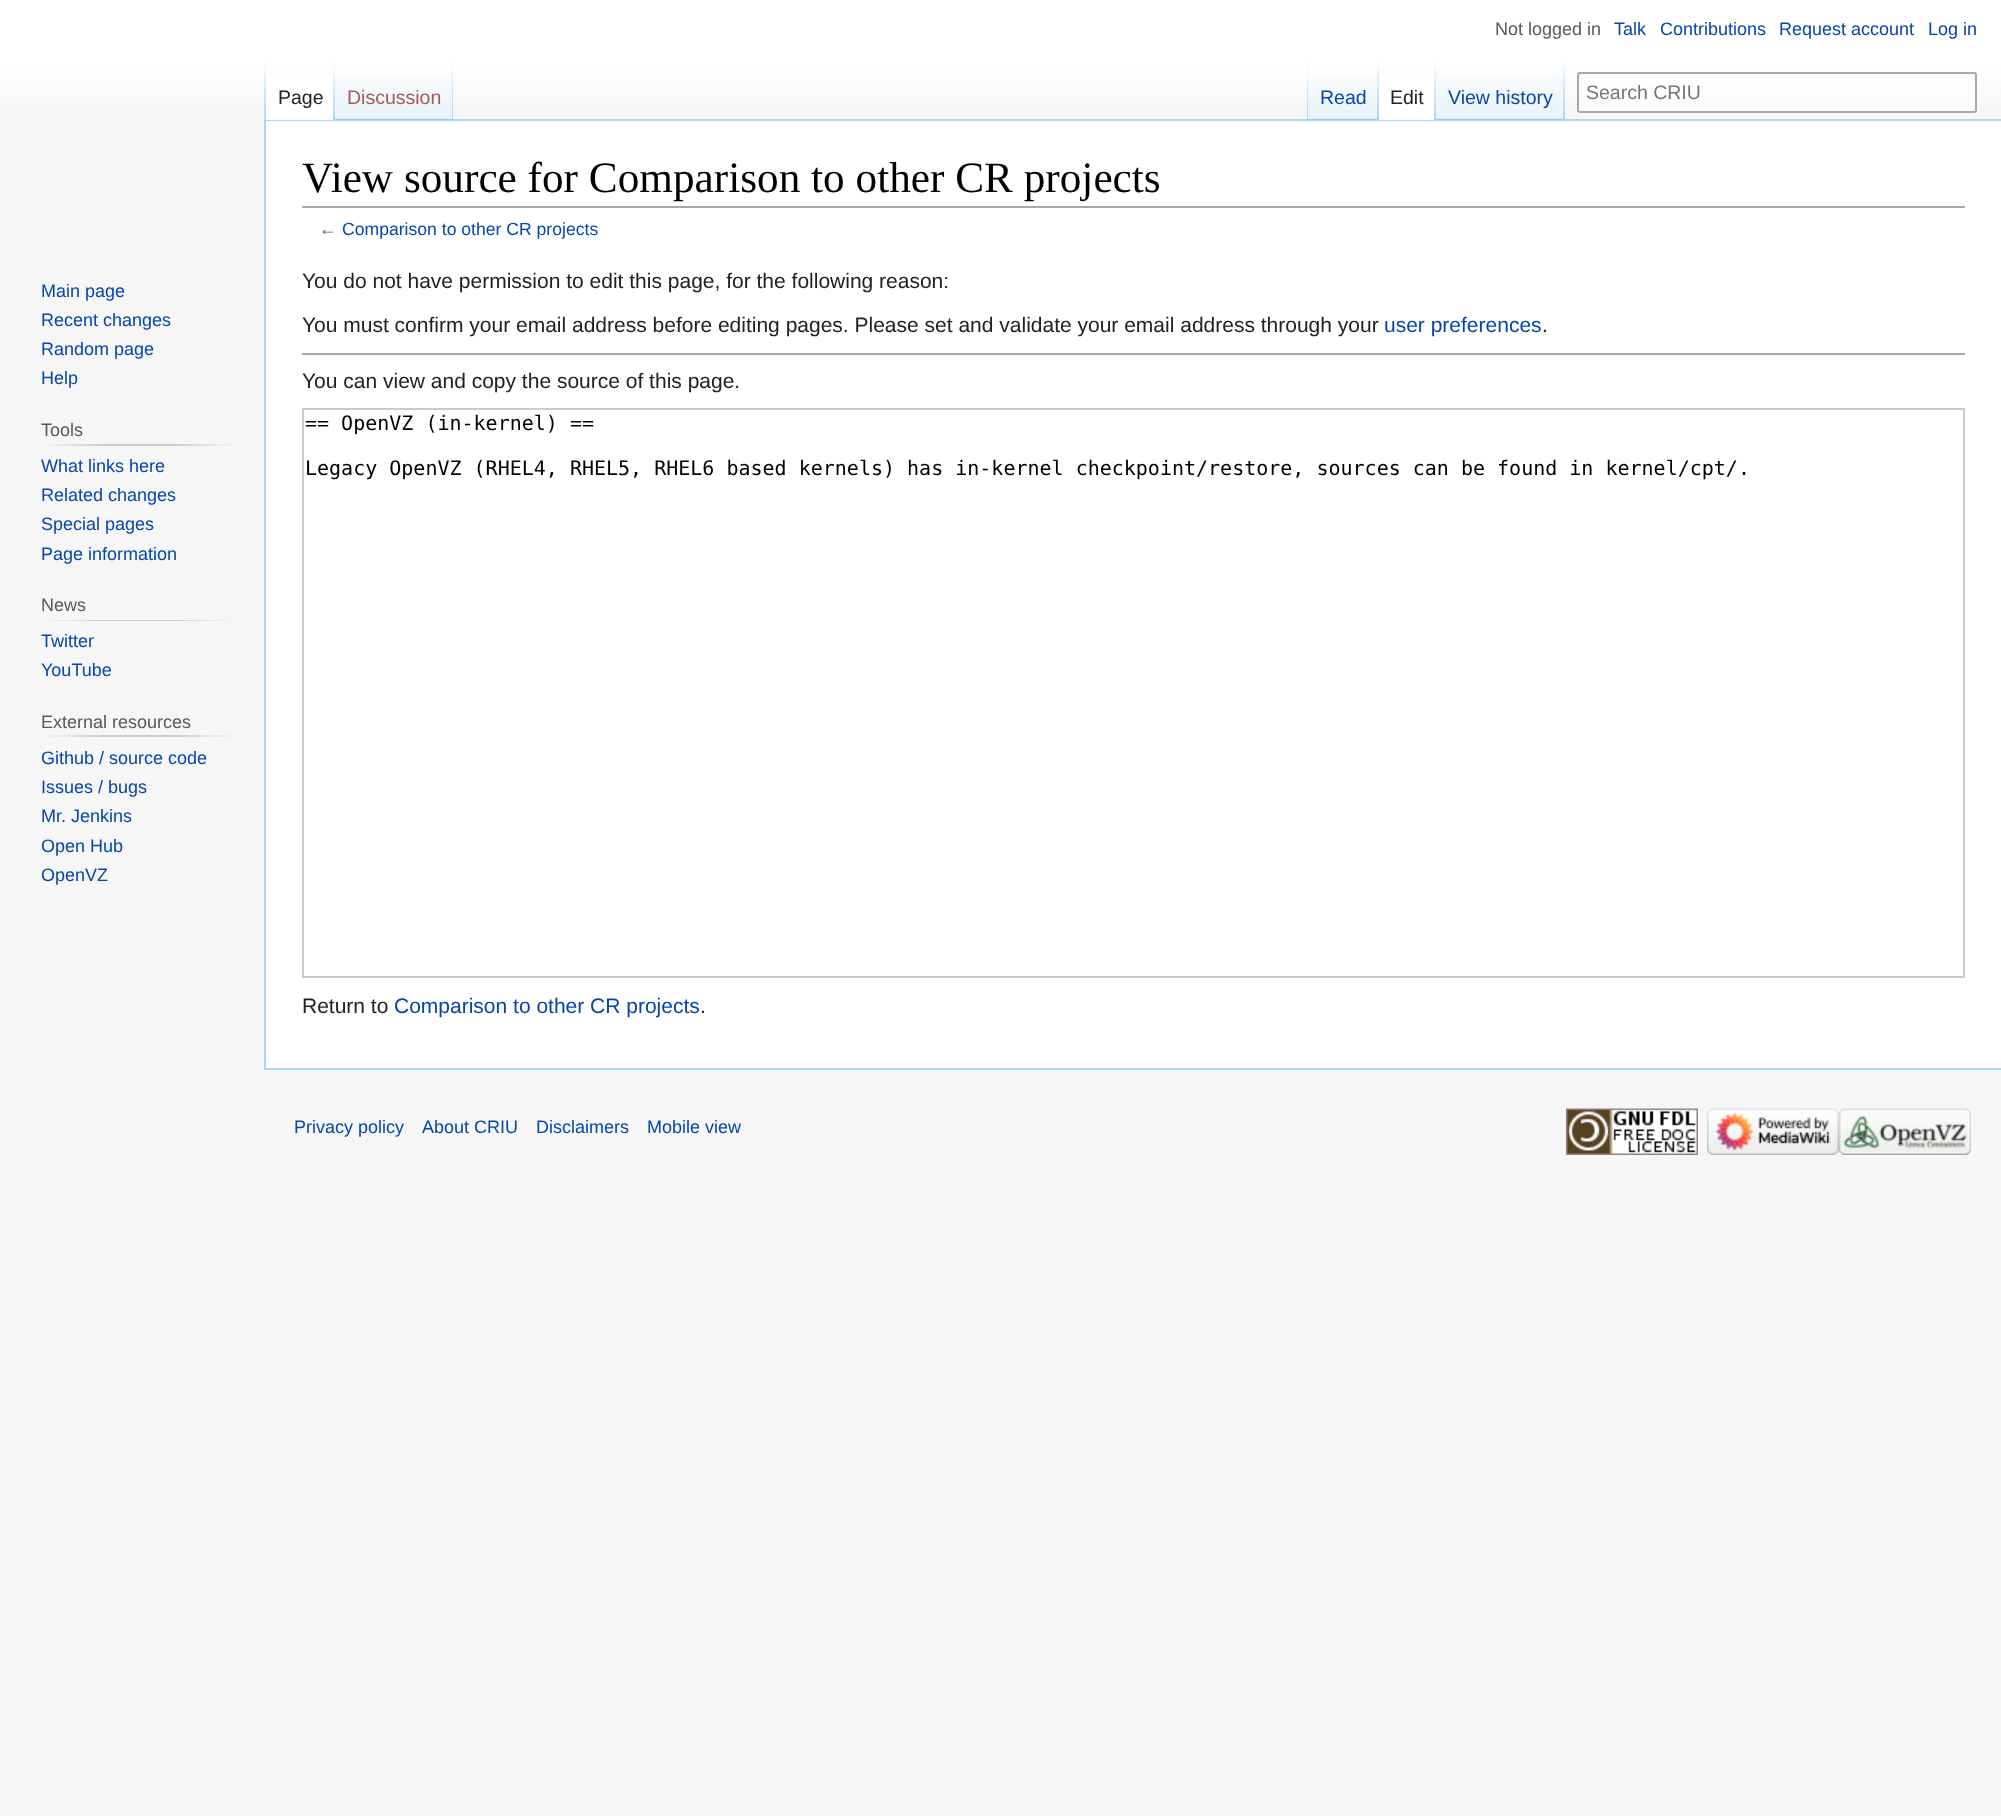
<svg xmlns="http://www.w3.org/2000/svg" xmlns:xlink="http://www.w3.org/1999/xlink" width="2001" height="1816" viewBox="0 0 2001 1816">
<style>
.cls-1{font:18px Liberation Sans;fill:#54595d}
.cls-2{font:18px Liberation Sans;fill:#0645ad}
.cls-3{font:19.5px Liberation Sans;fill:#202122}
.cls-4{font:19.5px Liberation Sans;fill:#a55858}
.cls-5{font:19.5px Liberation Sans;fill:#0645ad}
.cls-6{font:19.5px Liberation Sans;fill:#72777d}
.cls-7{font:43.25px Liberation Serif;fill:#000000}
.cls-8{font:17.6px Liberation Sans;fill:#54595d}
.cls-9{font:17.6px Liberation Sans;fill:#0645ad}
.cls-10{font:21px Liberation Sans;fill:#202122}
.cls-11{font:21px Liberation Sans;fill:#0645ad}
.cls-12{font:20px DejaVu Sans Mono;fill:#000000}
</style>
<defs>
<linearGradient id="g1" gradientUnits="userSpaceOnUse" x1="1001" y1="0" x2="1001" y2="120"><stop offset="0.5" stop-color="#ffffff"/><stop offset="1" stop-color="#f6f6f6"/></linearGradient>
<linearGradient id="g2" gradientUnits="userSpaceOnUse" x1="265" y1="60" x2="265" y2="120"><stop offset="0" stop-color="#a7d7f9" stop-opacity="0"/><stop offset="1" stop-color="#a7d7f9"/></linearGradient>
<linearGradient id="g3" gradientUnits="userSpaceOnUse" x1="334" y1="60" x2="334" y2="120"><stop offset="0" stop-color="#ffffff"/><stop offset="1" stop-color="#a7d7f9"/></linearGradient>
<linearGradient id="g4" gradientUnits="userSpaceOnUse" x1="394" y1="120" x2="394" y2="60"><stop offset="0" stop-color="#77c1f6"/><stop offset="0.03" stop-color="#e8f2f8"/><stop offset="1" stop-color="#ffffff"/></linearGradient>
<linearGradient id="g5" gradientUnits="userSpaceOnUse" x1="452" y1="60" x2="452" y2="120"><stop offset="0" stop-color="#a7d7f9" stop-opacity="0"/><stop offset="1" stop-color="#a7d7f9"/></linearGradient>
<linearGradient id="g6" gradientUnits="userSpaceOnUse" x1="1307" y1="60" x2="1307" y2="120"><stop offset="0" stop-color="#a7d7f9" stop-opacity="0"/><stop offset="1" stop-color="#a7d7f9"/></linearGradient>
<linearGradient id="g7" gradientUnits="userSpaceOnUse" x1="1343" y1="120" x2="1343" y2="60"><stop offset="0" stop-color="#77c1f6"/><stop offset="0.03" stop-color="#e8f2f8"/><stop offset="1" stop-color="#ffffff"/></linearGradient>
<linearGradient id="g8" gradientUnits="userSpaceOnUse" x1="1378" y1="60" x2="1378" y2="120"><stop offset="0" stop-color="#a7d7f9" stop-opacity="0"/><stop offset="1" stop-color="#a7d7f9"/></linearGradient>
<linearGradient id="g9" gradientUnits="userSpaceOnUse" x1="1435" y1="60" x2="1435" y2="120"><stop offset="0" stop-color="#ffffff"/><stop offset="1" stop-color="#a7d7f9"/></linearGradient>
<linearGradient id="g10" gradientUnits="userSpaceOnUse" x1="1500" y1="120" x2="1500" y2="60"><stop offset="0" stop-color="#77c1f6"/><stop offset="0.03" stop-color="#e8f2f8"/><stop offset="1" stop-color="#ffffff"/></linearGradient>
<linearGradient id="g11" gradientUnits="userSpaceOnUse" x1="1564" y1="60" x2="1564" y2="120"><stop offset="0" stop-color="#a7d7f9" stop-opacity="0"/><stop offset="1" stop-color="#a7d7f9"/></linearGradient>
<linearGradient id="g12" gradientUnits="userSpaceOnUse" x1="41" y1="445" x2="237" y2="445"><stop offset="0" stop-color="#f6f6f6"/><stop offset="0.33" stop-color="#c8ccd1"/><stop offset="0.66" stop-color="#c8ccd1"/><stop offset="1" stop-color="#f6f6f6"/></linearGradient>
<linearGradient id="g13" gradientUnits="userSpaceOnUse" x1="41" y1="620" x2="237" y2="620"><stop offset="0" stop-color="#f6f6f6"/><stop offset="0.33" stop-color="#c8ccd1"/><stop offset="0.66" stop-color="#c8ccd1"/><stop offset="1" stop-color="#f6f6f6"/></linearGradient>
<linearGradient id="g14" gradientUnits="userSpaceOnUse" x1="41" y1="736" x2="237" y2="736"><stop offset="0" stop-color="#f6f6f6"/><stop offset="0.33" stop-color="#c8ccd1"/><stop offset="0.66" stop-color="#c8ccd1"/><stop offset="1" stop-color="#f6f6f6"/></linearGradient>
</defs>
<rect width="100%" height="100%" fill="#f6f6f6"/>
<rect fill="url(#g1)" x="0" y="0" width="2001" height="103"/>
<rect fill="#a7d7f9" x="264" y="119" width="1737" height="2"/>
<rect fill="#a7d7f9" x="264" y="1068" width="1737" height="2"/>
<rect fill="#a7d7f9" x="264" y="119" width="2" height="951"/>
<rect fill="url(#g2)" x="264" y="60" width="2" height="60"/>
<rect fill="#ffffff" x="266" y="77" width="67" height="43"/>
<rect fill="url(#g3)" x="333" y="60" width="2" height="60"/>
<rect fill="url(#g4)" x="335" y="69" width="118" height="51"/>
<rect fill="url(#g5)" x="452" y="60" width="1" height="60"/>
<rect fill="url(#g6)" x="1307" y="60" width="1" height="60"/>
<rect fill="url(#g7)" x="1308" y="69" width="71" height="51"/>
<rect fill="url(#g8)" x="1377" y="60" width="2" height="60"/>
<rect fill="#ffffff" x="1379" y="77" width="55" height="43"/>
<rect fill="url(#g9)" x="1434" y="60" width="2" height="60"/>
<rect fill="url(#g10)" x="1436" y="69" width="129" height="51"/>
<rect fill="url(#g11)" x="1563" y="60" width="2" height="60"/>
<rect fill="#ffffff" fill-opacity="0.5" stroke="#a2a9b1" stroke-width="2" x="1578" y="73" width="398" height="39" rx="2"/>
<rect fill="url(#g12)" x="41" y="444" width="196" height="2"/>
<rect fill="url(#g13)" x="41" y="620" width="196" height="1"/>
<rect fill="url(#g14)" x="41" y="735" width="196" height="2"/>
<rect fill="#ffffff" x="266" y="121" width="1735" height="947"/>
<rect fill="#a2a9b1" x="302" y="206" width="1663" height="2"/>
<rect fill="#a2a9b1" x="302" y="353" width="1663" height="2"/>
<rect fill="none" stroke="#c8ccd1" stroke-width="2" x="303" y="409" width="1661" height="568"/>
<image xlink:href="image0.png" x="1566" y="1108" width="132" height="47"/>
<image xlink:href="image1.png" x="1707" y="1108" width="132" height="47"/>
<image xlink:href="image2.png" x="1839" y="1108" width="132" height="47"/>
<text class="cls-1" x="1495" y="35">Not logged in</text>
<text class="cls-2" x="1614" y="35">Talk</text>
<text class="cls-2" x="1660" y="35">Contributions</text>
<text class="cls-2" x="1779" y="35">Request account</text>
<text class="cls-2" x="1928" y="35">Log in</text>
<text class="cls-3" x="278" y="104">Page</text>
<text class="cls-4" x="347" y="104">Discussion</text>
<text class="cls-5" x="1320" y="104">Read</text>
<text class="cls-3" x="1390" y="104">Edit</text>
<text class="cls-5" x="1448" y="104">View history</text>
<text class="cls-6" x="1586" y="99">Search CRIU</text>
<text class="cls-2"><tspan x="41" y="297">Main page</tspan><tspan x="41" y="326">Recent changes</tspan><tspan x="41" y="355">Random page</tspan><tspan x="41" y="384">Help</tspan></text>
<text class="cls-1" x="41" y="436">Tools</text>
<text class="cls-2"><tspan x="41" y="472">What links here</tspan><tspan x="41" y="501">Related changes</tspan><tspan x="41" y="530">Special pages</tspan><tspan x="41" y="560">Page information</tspan></text>
<text class="cls-1" x="41" y="611">News</text>
<text class="cls-2"><tspan x="41" y="647">Twitter</tspan><tspan x="41" y="676">YouTube</tspan></text>
<text class="cls-1" x="41" y="728">External resources</text>
<text class="cls-2"><tspan x="41" y="764">Github / source code</tspan><tspan x="41" y="793">Issues / bugs</tspan><tspan x="41" y="822">Mr. Jenkins</tspan><tspan x="41" y="852">Open Hub</tspan><tspan x="41" y="881">OpenVZ</tspan></text>
<text class="cls-7" x="302" y="192">View source for Comparison to other CR projects</text>
<text class="cls-8" x="319" y="235">←</text>
<text class="cls-9" x="342" y="235">Comparison to other CR projects</text>
<text class="cls-10" x="302" y="288">You do not have permission to edit this page, for the following reason:</text>
<text class="cls-10" x="302" y="332">You must confirm your email address before editing pages. Please set and validate your email address through your</text>
<text class="cls-11" x="1384" y="332">user preferences</text>
<text class="cls-10" x="1542" y="332">.</text>
<text class="cls-10" x="302" y="388">You can view and copy the source of this page.</text>
<text class="cls-12" x="305" y="430">== OpenVZ (in-kernel) ==</text>
<text class="cls-12" x="305" y="475">Legacy OpenVZ (RHEL4, RHEL5, RHEL6 based kernels) has in-kernel checkpoint/restore, sources can be found in kernel/cpt/.</text>
<text class="cls-10" x="302" y="1013">Return to</text>
<text class="cls-11" x="394" y="1013">Comparison to other CR projects</text>
<text class="cls-10" x="700" y="1013">.</text>
<text class="cls-2" x="294" y="1133">Privacy policy</text>
<text class="cls-2" x="422" y="1133">About CRIU</text>
<text class="cls-2" x="536" y="1133">Disclaimers</text>
<text class="cls-2" x="647" y="1133">Mobile view</text>
</svg>
